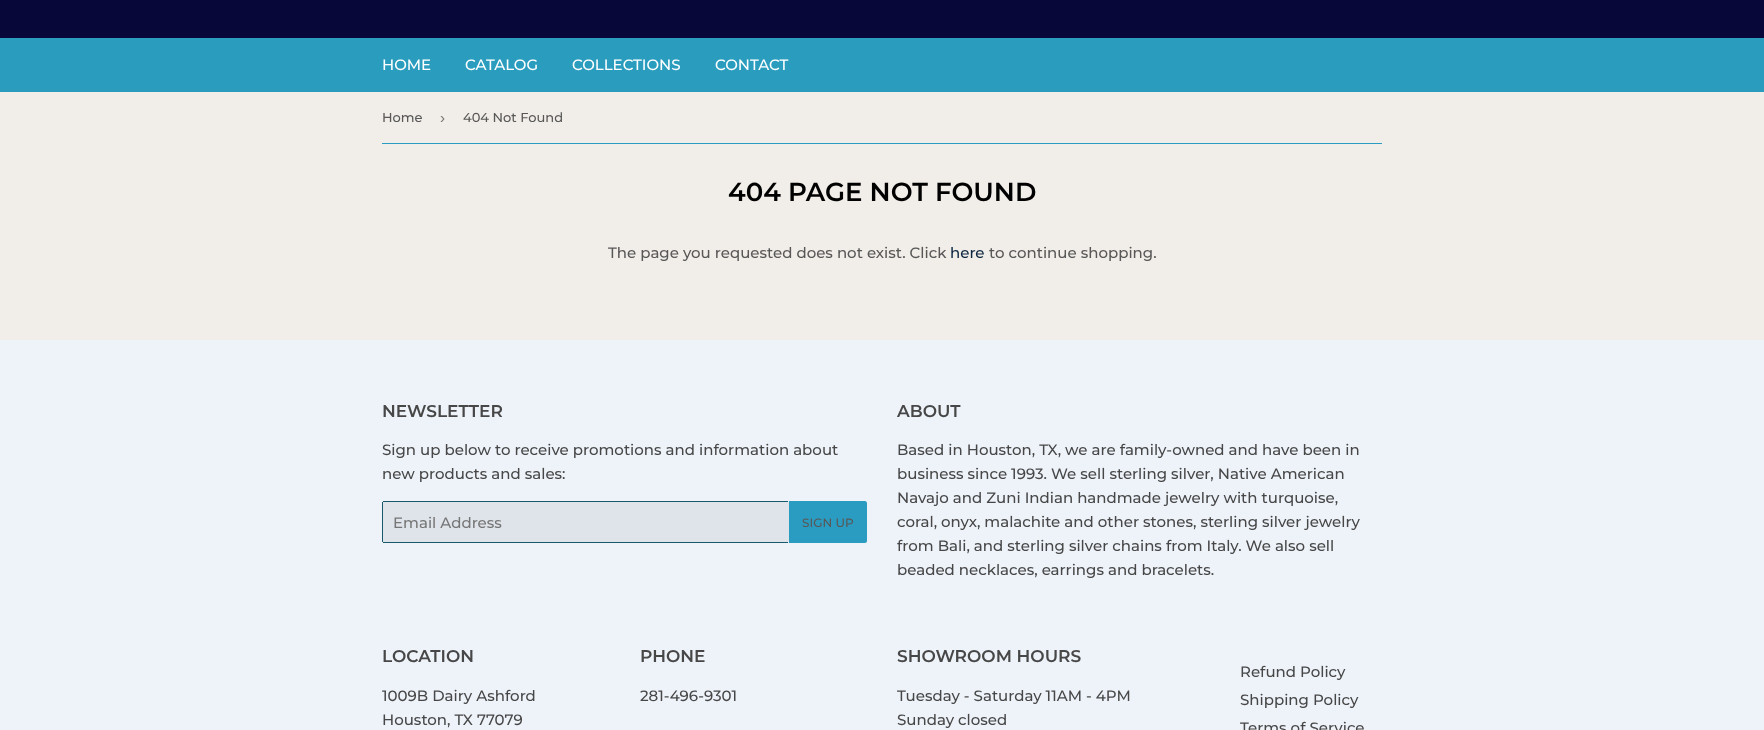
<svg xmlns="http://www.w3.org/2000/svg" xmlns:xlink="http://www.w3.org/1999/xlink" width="1764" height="730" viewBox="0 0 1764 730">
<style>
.cls-1{font:500 15px Montserrat;fill:#ffffff}
.cls-2{font:500 13px Montserrat;fill:#585858}
.cls-3{font:15px Liberation Sans;fill:#767676}
.cls-4{font:600 26px Montserrat;fill:#000000}
.cls-5{font:500 15px Montserrat;fill:#585858}
.cls-6{font:500 15px Montserrat;fill:#0b263f}
.cls-7{font:600 17px Montserrat;fill:#474747}
.cls-8{font:500 15px Montserrat;fill:#474747}
.cls-9{font:500 15px Montserrat;fill:#767676}
.cls-10{font:500 12px Montserrat;fill:#585858}
</style>
<rect width="100%" height="100%" fill="#f1ede8"/>
<rect fill="#070839" x="0" y="0" width="1764" height="38"/>
<rect fill="#2a9dbf" x="0" y="38" width="1764" height="54"/>
<rect fill="#2b9cc1" x="382" y="143" width="1000" height="1"/>
<rect fill="#eef3fa" x="0" y="340" width="1764" height="390"/>
<rect fill="#dfe4ea" x="382" y="501" width="407" height="42" rx="2"/>
<rect fill="#18596e" x="383" y="501" width="405" height="1"/>
<rect fill="#18596e" x="383" y="542" width="405" height="1"/>
<rect fill="#18596e" x="382" y="502" width="1" height="40"/>
<path fill="#2b9cc1" d="M789 501H865C866 501 867 502 867 503V541C867 542 866 543 865 543H789Z"/>
<text class="cls-1" x="382" y="70">HOME</text>
<text class="cls-1" x="465" y="70">CATALOG</text>
<text class="cls-1" x="572" y="70">COLLECTIONS</text>
<text class="cls-1" x="715" y="70">CONTACT</text>
<text class="cls-2" x="382" y="122">Home</text>
<text class="cls-3" x="440" y="123">›</text>
<text class="cls-2" x="463" y="122">404 Not Found</text>
<text class="cls-4" x="728" y="201">404 PAGE NOT FOUND</text>
<text class="cls-5" x="608" y="258">The page you requested does not exist. Click</text>
<text class="cls-6" x="950" y="258">here</text>
<text class="cls-5" x="989" y="258">to continue shopping.</text>
<text class="cls-7" x="382" y="417">NEWSLETTER</text>
<text class="cls-8"><tspan x="382" y="455">Sign up below to receive promotions and information about</tspan><tspan x="382" y="479">new products and sales:</tspan></text>
<text class="cls-9" x="393" y="528">Email Address</text>
<text class="cls-10" x="802" y="527">SIGN UP</text>
<text class="cls-7" x="897" y="417">ABOUT</text>
<text class="cls-8"><tspan x="897" y="455">Based in Houston, TX, we are family-owned and have been in</tspan><tspan x="897" y="479">business since 1993. We sell sterling silver, Native American</tspan><tspan x="897" y="503">Navajo and Zuni Indian handmade jewelry with turquoise,</tspan><tspan x="897" y="527">coral, onyx, malachite and other stones, sterling silver jewelry</tspan><tspan x="897" y="551">from Bali, and sterling silver chains from Italy. We also sell</tspan><tspan x="897" y="575">beaded necklaces, earrings and bracelets.</tspan></text>
<text class="cls-7" x="382" y="662">LOCATION</text>
<text class="cls-8"><tspan x="382" y="701">1009B Dairy Ashford</tspan><tspan x="382" y="725">Houston, TX 77079</tspan></text>
<text class="cls-7" x="640" y="662">PHONE</text>
<text class="cls-8" x="640" y="701">281-496-9301</text>
<text class="cls-7" x="897" y="662">SHOWROOM HOURS</text>
<text class="cls-8"><tspan x="897" y="701">Tuesday - Saturday 11AM - 4PM</tspan><tspan x="897" y="725">Sunday closed</tspan></text>
<text class="cls-8"><tspan x="1240" y="677">Refund Policy</tspan><tspan x="1240" y="705">Shipping Policy</tspan><tspan x="1240" y="733">Terms of Service</tspan></text>
</svg>
